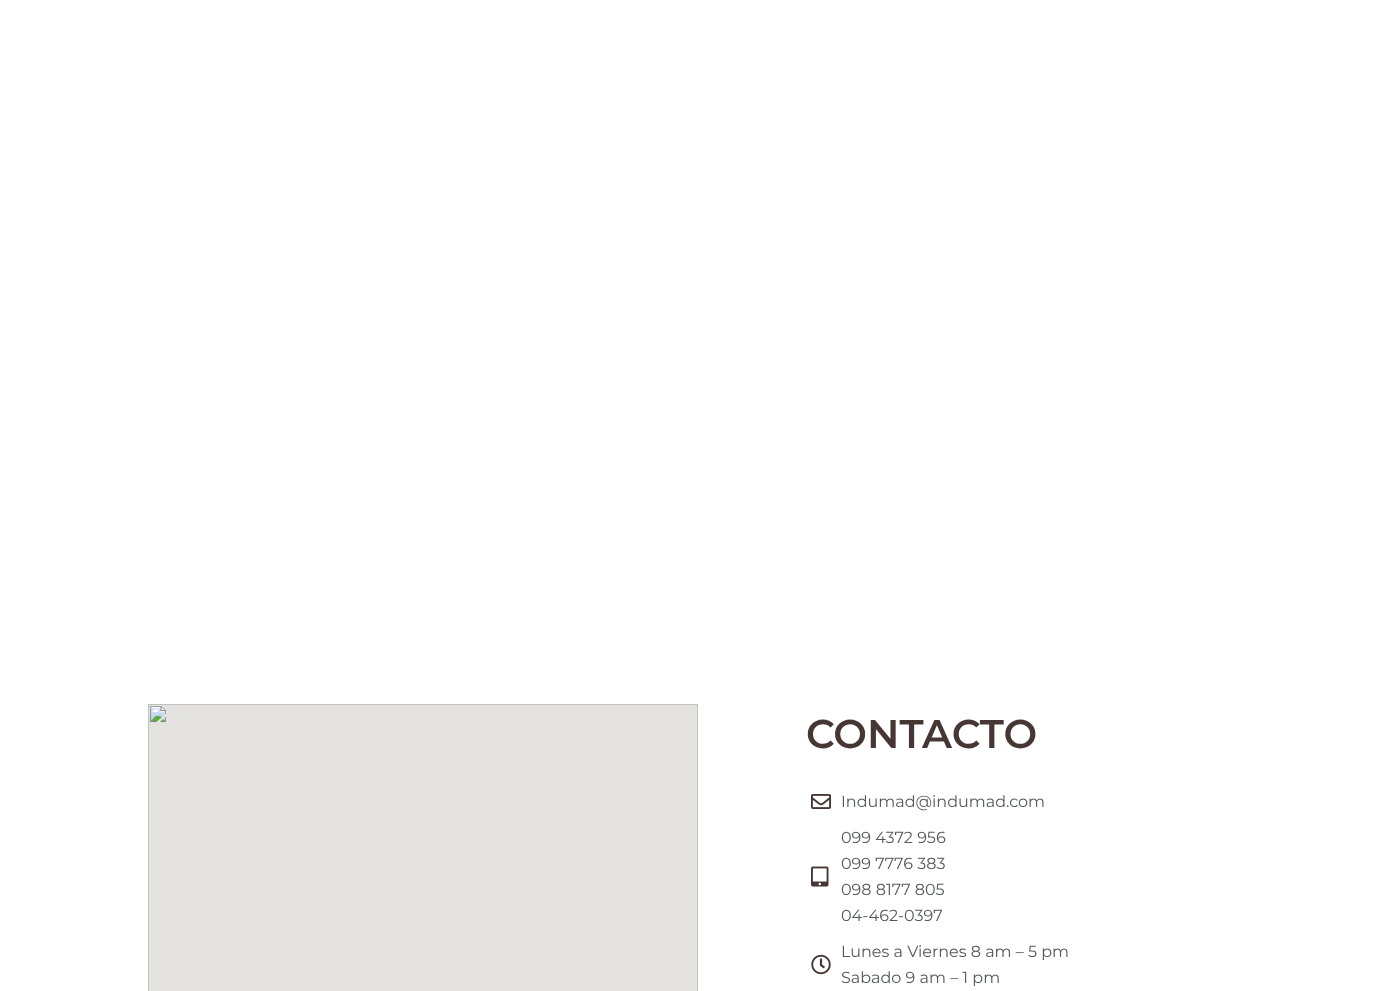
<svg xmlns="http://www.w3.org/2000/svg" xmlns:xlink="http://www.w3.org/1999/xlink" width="1395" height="991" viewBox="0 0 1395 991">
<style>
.cls-1{font:600 40px Montserrat;fill:#473734}
.cls-2{font:16px Montserrat;fill:#54595f}
</style>
<rect width="100%" height="100%" fill="#ffffff"/>
<image xlink:href="image0.png" x="148" y="704" width="550" height="287"/>
<image xlink:href="image1.png" x="811" y="794" width="20" height="15"/>
<image xlink:href="image2.png" x="811" y="866" width="18" height="21"/>
<image xlink:href="image3.png" x="811" y="954" width="20" height="21"/>
<text class="cls-1" x="806" y="748">CONTACTO</text>
<text class="cls-2" x="841" y="807">Indumad@indumad.com</text>
<text class="cls-2"><tspan x="841" y="843">099 4372 956</tspan><tspan x="841" y="869">099 7776 383</tspan><tspan x="841" y="895">098 8177 805</tspan><tspan x="841" y="921">04-462-0397</tspan></text>
<text class="cls-2"><tspan x="841" y="957">Lunes a Viernes 8 am – 5 pm</tspan><tspan x="841" y="983">Sabado 9 am – 1 pm</tspan></text>
</svg>
